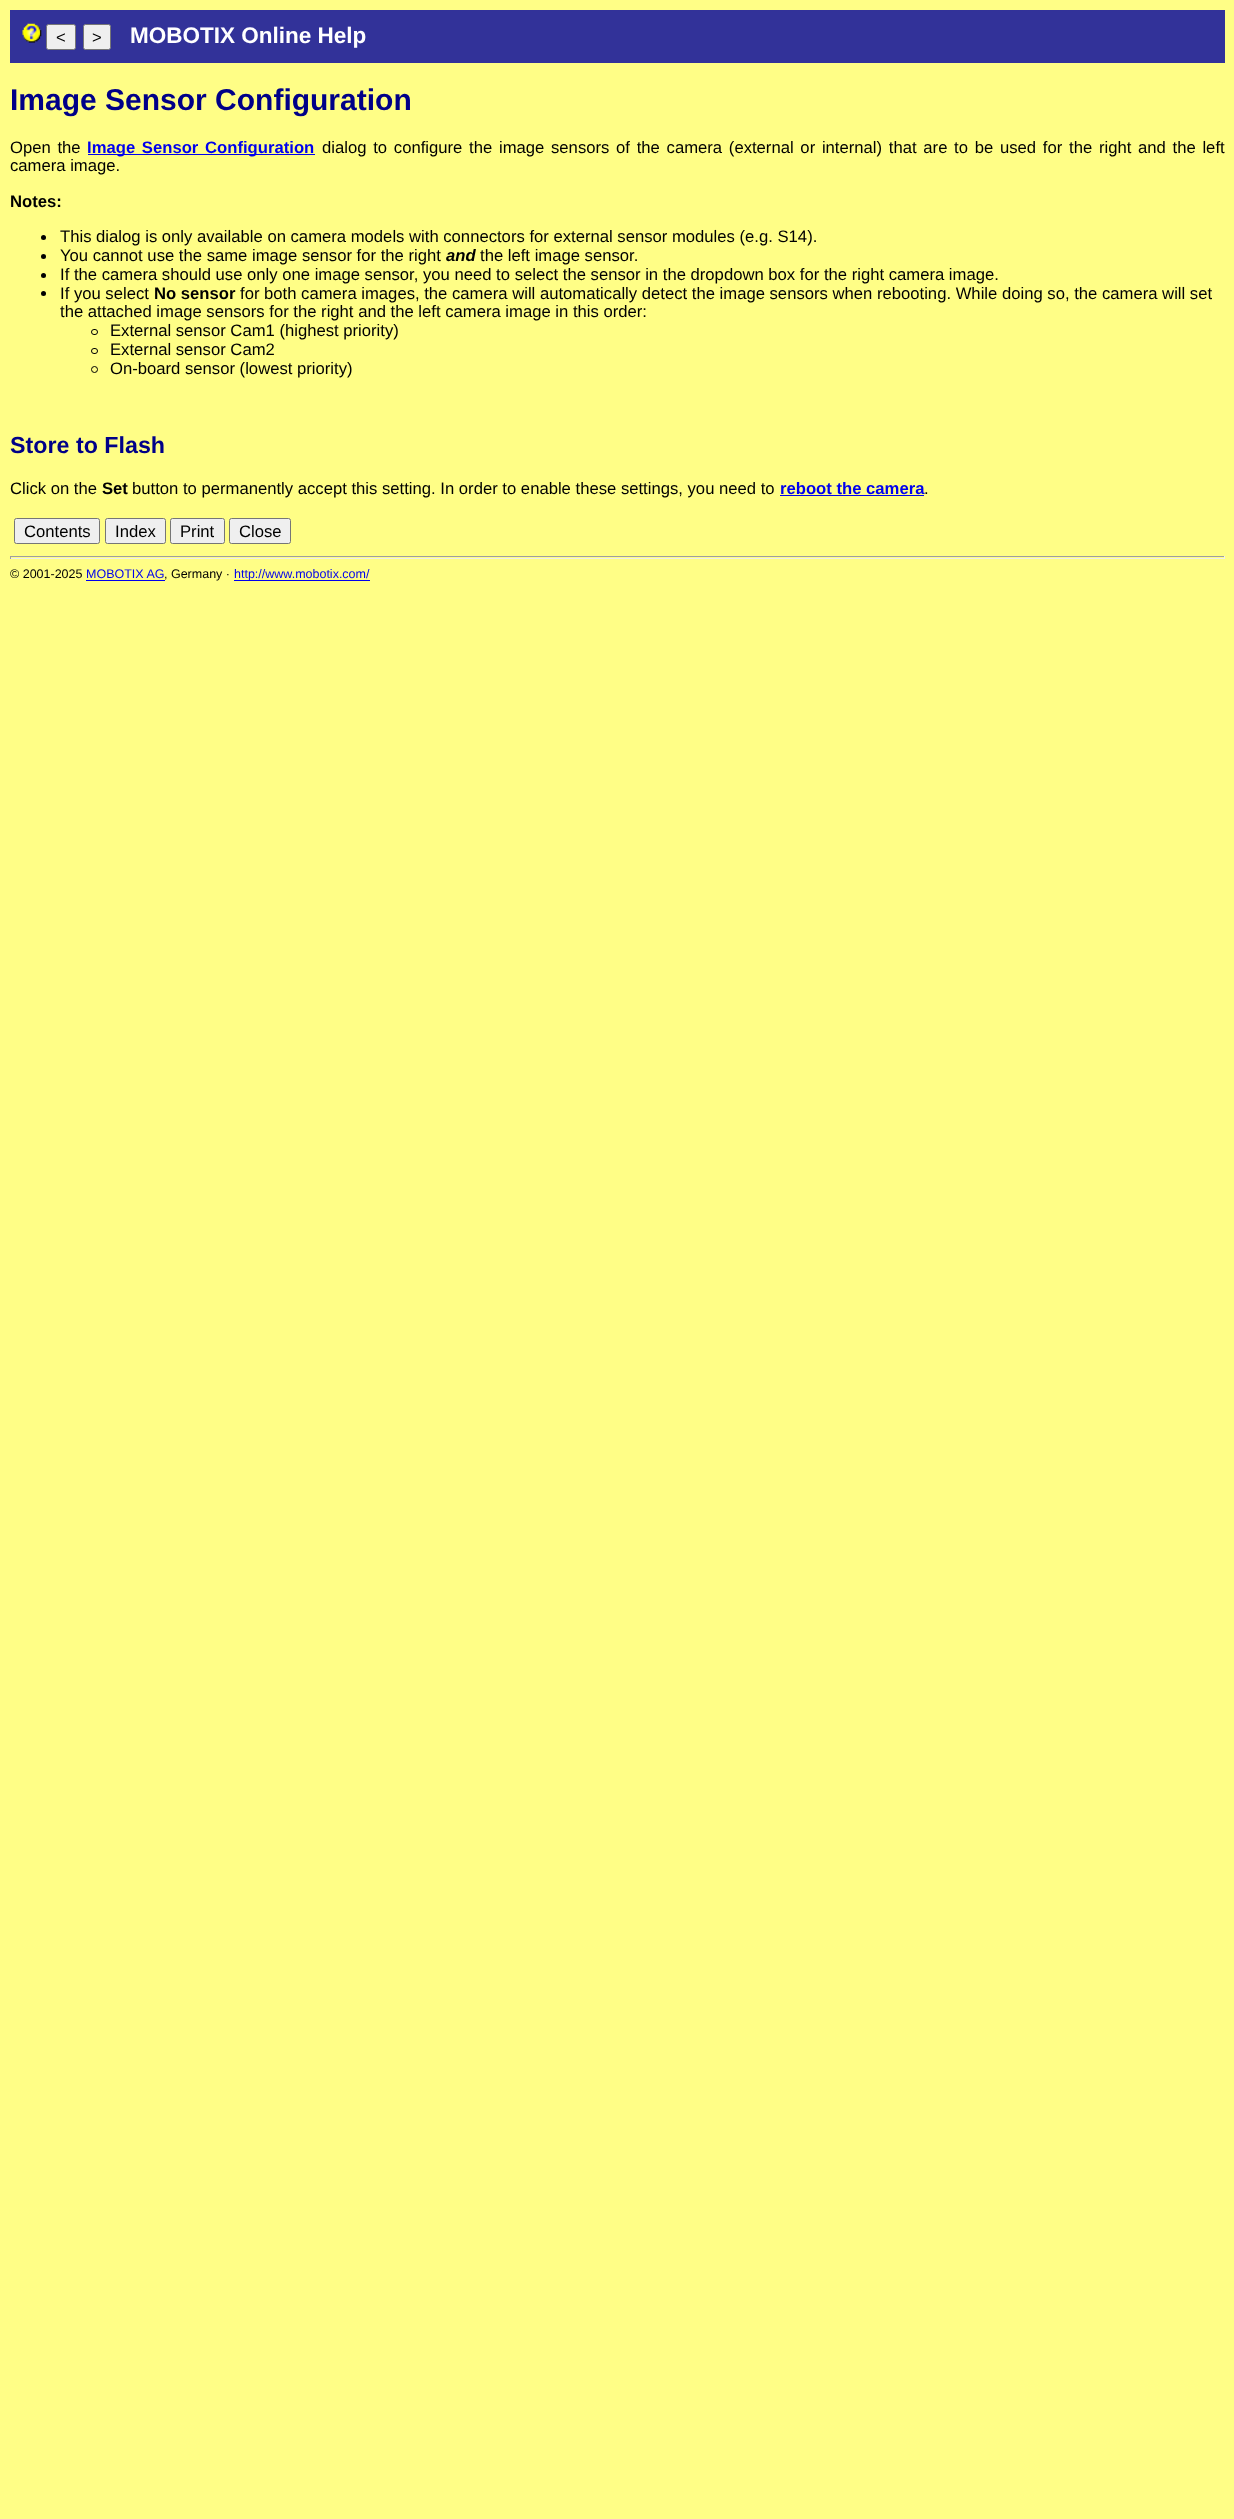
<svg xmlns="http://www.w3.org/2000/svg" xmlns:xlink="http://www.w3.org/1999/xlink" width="1234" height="2519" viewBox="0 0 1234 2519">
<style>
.cls-1{font:16.67px Liberation Sans;fill:#000000}
.cls-2{font:bold 22.5px Liberation Sans;fill:#ffffff}
.cls-3{font:bold 30px Liberation Sans;fill:#000088}
.cls-4{font:bold 16.67px Liberation Sans;fill:#0000ee}
.cls-5{font:bold 16.67px Liberation Sans;fill:#000000}
.cls-6{font:italic bold 16.67px Liberation Sans;fill:#000000}
.cls-7{font:bold 23.25px Liberation Sans;fill:#000088}
.cls-8{font:12.5px Liberation Sans;fill:#000000}
.cls-9{font:12.5px Liberation Sans;fill:#0000ee}
</style>
<rect width="100%" height="100%" fill="#fffe86"/>
<rect fill="#323299" x="10" y="10" width="1215" height="53"/>
<image xlink:href="image0.png" x="22" y="23" width="20" height="20"/>
<rect fill="#efefef" stroke="#767676" x="46.5" y="24.5" width="29" height="25" rx="2"/>
<rect fill="#efefef" stroke="#767676" x="83.5" y="24.5" width="27" height="25" rx="2"/>
<rect fill="#0000ee" x="88" y="154" width="227" height="1"/>
<circle fill="#000000" cx="43.5" cy="237.5" r="2.5"/>
<circle fill="#000000" cx="43.5" cy="256.5" r="2.5"/>
<circle fill="#000000" cx="43.5" cy="275.5" r="2.5"/>
<circle fill="#000000" cx="43.5" cy="293.5" r="2.5"/>
<rect fill="none" stroke="#000000" x="91.5" y="329.5" width="6" height="5" rx="2.5"/>
<rect fill="none" stroke="#000000" x="91.5" y="348.5" width="6" height="5" rx="2.5"/>
<circle fill="none" stroke="#000000" cx="94.5" cy="369.5" r="3"/>
<rect fill="#0000ee" x="780" y="495" width="144" height="1"/>
<rect fill="#efefef" stroke="#767676" x="14.5" y="518.5" width="85" height="25" rx="2"/>
<rect fill="#efefef" stroke="#767676" x="105.5" y="518.5" width="60" height="25" rx="2"/>
<rect fill="#efefef" stroke="#767676" x="170.5" y="518.5" width="54" height="25" rx="2"/>
<rect fill="#efefef" stroke="#767676" x="229.5" y="518.5" width="61" height="25" rx="2"/>
<rect fill="#9f9f9f" x="10" y="556" width="1215" height="1"/>
<rect fill="#eeeeee" x="1224" y="556" width="1" height="3"/>
<rect fill="#eeeeee" x="10" y="558" width="1215" height="1"/>
<rect fill="#9f9f9f" x="10" y="556" width="1" height="3"/>
<rect fill="#0000ee" x="86" y="580" width="79" height="1"/>
<rect fill="#0000ee" x="234" y="580" width="136" height="1"/>
<text class="cls-1" x="56" y="43">&lt;</text>
<text class="cls-1" x="92" y="43">&gt;</text>
<text class="cls-2" x="130" y="43">MOBOTIX Online Help</text>
<text class="cls-3" x="10" y="110">Image Sensor Configuration</text>
<text class="cls-1" x="10" y="153" word-spacing="2.1">Open the</text>
<text class="cls-4" x="87" y="153" word-spacing="2.1">Image Sensor Configuration</text>
<text class="cls-1" x="322" y="153" word-spacing="2.1">dialog to configure the image sensors of the camera (external or internal) that are to be used for the right and the left</text>
<text class="cls-1" x="10" y="171">camera image.</text>
<text class="cls-5" x="10" y="207">Notes:</text>
<text class="cls-1"><tspan x="60" y="242">This dialog is only available on camera models with connectors for external sensor modules (e.g. S14).</tspan><tspan x="60" y="261">You cannot use the same image sensor for the right</tspan></text>
<text class="cls-6" x="446" y="261">and</text>
<text class="cls-1" x="480" y="261">the left image sensor.</text>
<text class="cls-1"><tspan x="60" y="280">If the camera should use only one image sensor, you need to select the sensor in the dropdown box for the right camera image.</tspan><tspan x="60" y="299">If you select</tspan></text>
<text class="cls-5" x="154" y="299">No sensor</text>
<text class="cls-1" x="240" y="299">for both camera images, the camera will automatically detect the image sensors when rebooting. While doing so, the camera will set</text>
<text class="cls-1" x="60" y="317">the attached image sensors for the right and the left camera image in this order:</text>
<text class="cls-1"><tspan x="110" y="336">External sensor Cam1 (highest priority)</tspan><tspan x="110" y="355">External sensor Cam2</tspan><tspan x="110" y="374">On-board sensor (lowest priority)</tspan></text>
<text class="cls-7" x="10" y="453">Store to Flash</text>
<text class="cls-1" x="10" y="494">Click on the</text>
<text class="cls-5" x="102" y="494">Set</text>
<text class="cls-1" x="132" y="494">button to permanently accept this setting. In order to enable these settings, you need to</text>
<text class="cls-4" x="780" y="494">reboot the camera</text>
<text class="cls-1" x="924" y="494">.</text>
<text class="cls-1" x="24" y="537">Contents</text>
<text class="cls-1" x="115" y="537">Index</text>
<text class="cls-1" x="180" y="537">Print</text>
<text class="cls-1" x="239" y="537">Close</text>
<text class="cls-8" x="10" y="578">© 2001-2025</text>
<text class="cls-9" x="86" y="578">MOBOTIX AG</text>
<text class="cls-8" x="164" y="578">, Germany ·</text>
<text class="cls-9" x="234" y="578">http://www.mobotix.com/</text>
</svg>
